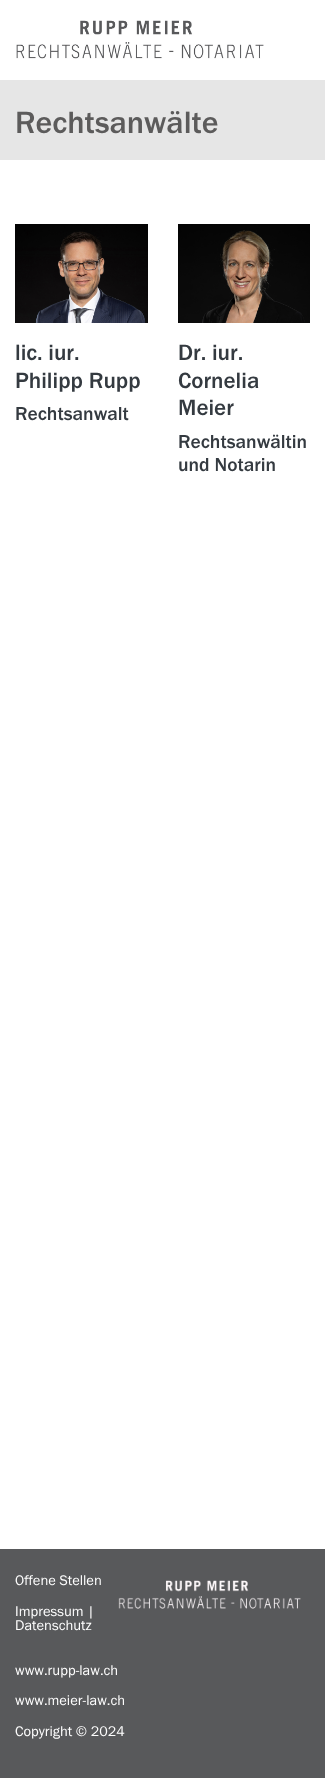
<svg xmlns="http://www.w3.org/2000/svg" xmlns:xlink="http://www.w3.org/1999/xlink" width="325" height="1778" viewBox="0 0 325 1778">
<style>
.cls-1{font:32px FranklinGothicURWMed;fill:#5c5b5b}
.cls-2{font:23px FranklinGothicURWMed;fill:#343a40}
.cls-3{font:19.5px FranklinGothicURWMed;fill:#343a40}
.cls-4{font:14.5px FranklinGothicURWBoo;fill:#ffffff}
</style>
<rect width="100%" height="100%" fill="#ffffff"/>
<image xlink:href="image0.png" x="16" y="20" width="248" height="39"/>
<rect fill="#e6e6e6" x="0" y="80" width="325" height="80"/>
<image xlink:href="image1.png" x="15" y="224" width="133" height="99"/>
<image xlink:href="image2.png" x="178" y="224" width="132" height="99"/>
<rect fill="#58595b" x="0" y="1549" width="325" height="229"/>
<image xlink:href="image3.png" x="118" y="1580" width="183" height="29"/>
<text class="cls-1" x="15" y="133">Rechtsanwälte</text>
<text class="cls-2"><tspan x="15" y="360">lic. iur.</tspan><tspan x="15" y="388">Philipp Rupp</tspan></text>
<text class="cls-3" x="15" y="420">Rechtsanwalt</text>
<text class="cls-2"><tspan x="178" y="360">Dr. iur.</tspan><tspan x="178" y="388">Cornelia</tspan><tspan x="178" y="415">Meier</tspan></text>
<text class="cls-3"><tspan x="178" y="448">Rechtsanwältin</tspan><tspan x="178" y="471">und Notarin</tspan></text>
<text class="cls-4" x="15" y="1585">Offene Stellen</text>
<text class="cls-4"><tspan x="15" y="1616">Impressum |</tspan><tspan x="15" y="1630">Datenschutz</tspan></text>
<text class="cls-4" x="15" y="1675">www.rupp-law.ch</text>
<text class="cls-4" x="15" y="1705">www.meier-law.ch</text>
<text class="cls-4" x="15" y="1736">Copyright © 2024</text>
</svg>
